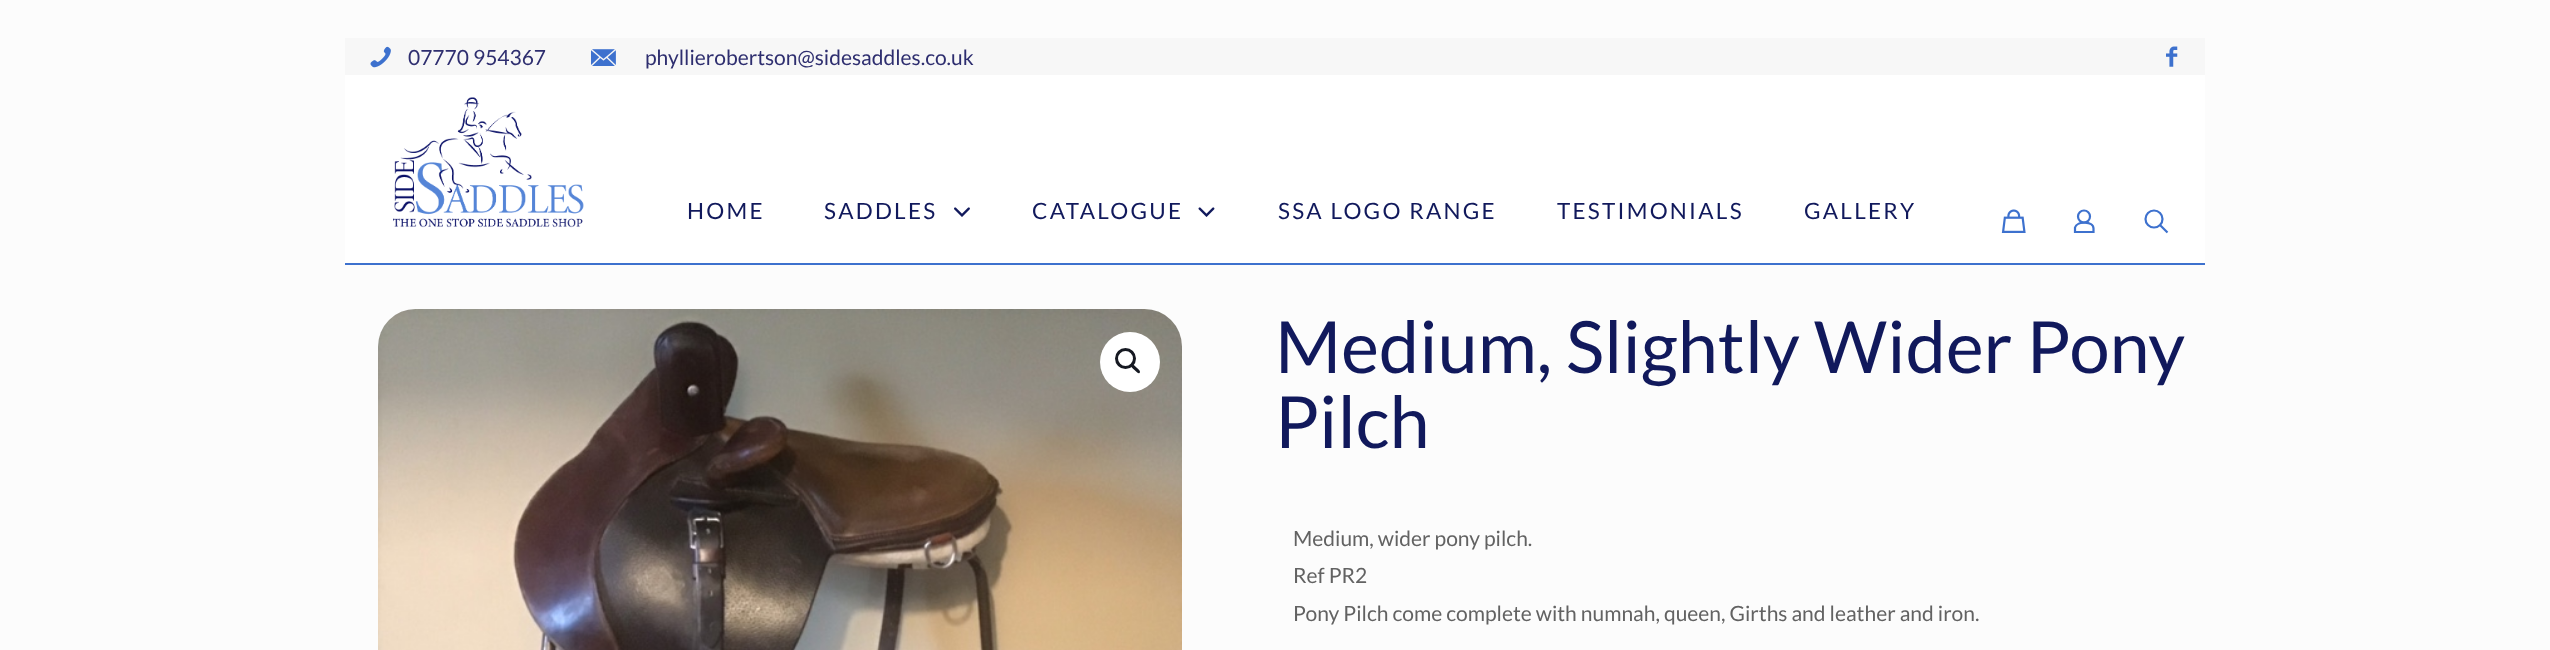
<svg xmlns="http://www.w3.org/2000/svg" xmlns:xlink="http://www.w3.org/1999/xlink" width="2550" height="650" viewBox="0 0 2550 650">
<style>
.cls-1{font:21px Lato;fill:#2e2e6f}
.cls-2{font:22.5px Lato;letter-spacing:2.25px;fill:#11195c}
.cls-3{font:72px Lato;fill:#11195c}
.cls-4{font:21px Lato;fill:#626262}
</style>
<rect width="100%" height="100%" fill="#fcfcfc"/>
<rect fill="#f7f7f7" x="345" y="38" width="1860" height="37"/>
<image xlink:href="image0.png" x="370" y="46" width="21" height="22"/>
<image xlink:href="image1.png" x="591" y="49" width="25" height="17"/>
<image xlink:href="image2.png" x="2166" y="46" width="12" height="21"/>
<rect fill="#ffffff" x="345" y="75" width="1860" height="188"/>
<rect fill="#3d71ce" x="345" y="263" width="1860" height="2"/>
<image xlink:href="image3.png" x="393" y="97" width="191" height="131"/>
<image xlink:href="image4.png" x="954" y="207" width="16" height="10"/>
<image xlink:href="image5.png" x="1198" y="207" width="17" height="10"/>
<image xlink:href="image6.png" x="2001" y="209" width="25" height="24"/>
<circle fill="none" stroke="#3d71ce" stroke-width="2.2" cx="2084" cy="216.5" r="6"/>
<path fill="none" stroke="#3d71ce" stroke-width="2.2" d="M2093.5 228.5V232H2075V227.5C2077 220.5 2093.5 221 2093.5 228.5Z"/>
<circle fill="none" stroke="#3d71ce" stroke-width="2.2" cx="2154" cy="219" r="8.5"/>
<path fill="none" stroke="#3d71ce" stroke-width="2.2" d="M2160 225L2167.5 232.5"/>
<image xlink:href="image7.png" x="378" y="309" width="804" height="341"/>
<circle fill="#ffffff" cx="1130" cy="362" r="30"/>
<circle fill="none" stroke="#161922" stroke-width="3" cx="1125.5" cy="358.5" r="9"/>
<path fill="#161922" d="M1131.5 364.5C1133 363 1135.5 366.5 1136.5 367.5C1137.5 368.5 1141.5 371.5 1139.5 373C1138 374.5 1135.5 370.5 1134.5 370C1133.5 369 1129.5 366 1131.5 364.5Z"/>
<text class="cls-1" x="408" y="65">07770 954367</text>
<text class="cls-1" x="645" y="65">phyllierobertson@sidesaddles.co.uk</text>
<text class="cls-2" x="687" y="219">HOME</text>
<text class="cls-2" x="824" y="219">SADDLES</text>
<text class="cls-2" x="1032" y="219">CATALOGUE</text>
<text class="cls-2" x="1278" y="219">SSA LOGO RANGE</text>
<text class="cls-2" x="1557" y="219">TESTIMONIALS</text>
<text class="cls-2" x="1804" y="219">GALLERY</text>
<text class="cls-3"><tspan x="1275" y="373">Medium, Slightly Wider Pony</tspan><tspan x="1275" y="448">Pilch</tspan></text>
<text class="cls-4"><tspan x="1293" y="546">Medium, wider pony pilch.</tspan><tspan x="1293" y="583">Ref PR2</tspan><tspan x="1293" y="621">Pony Pilch come complete with numnah, queen, Girths and leather and iron.</tspan></text>
</svg>
